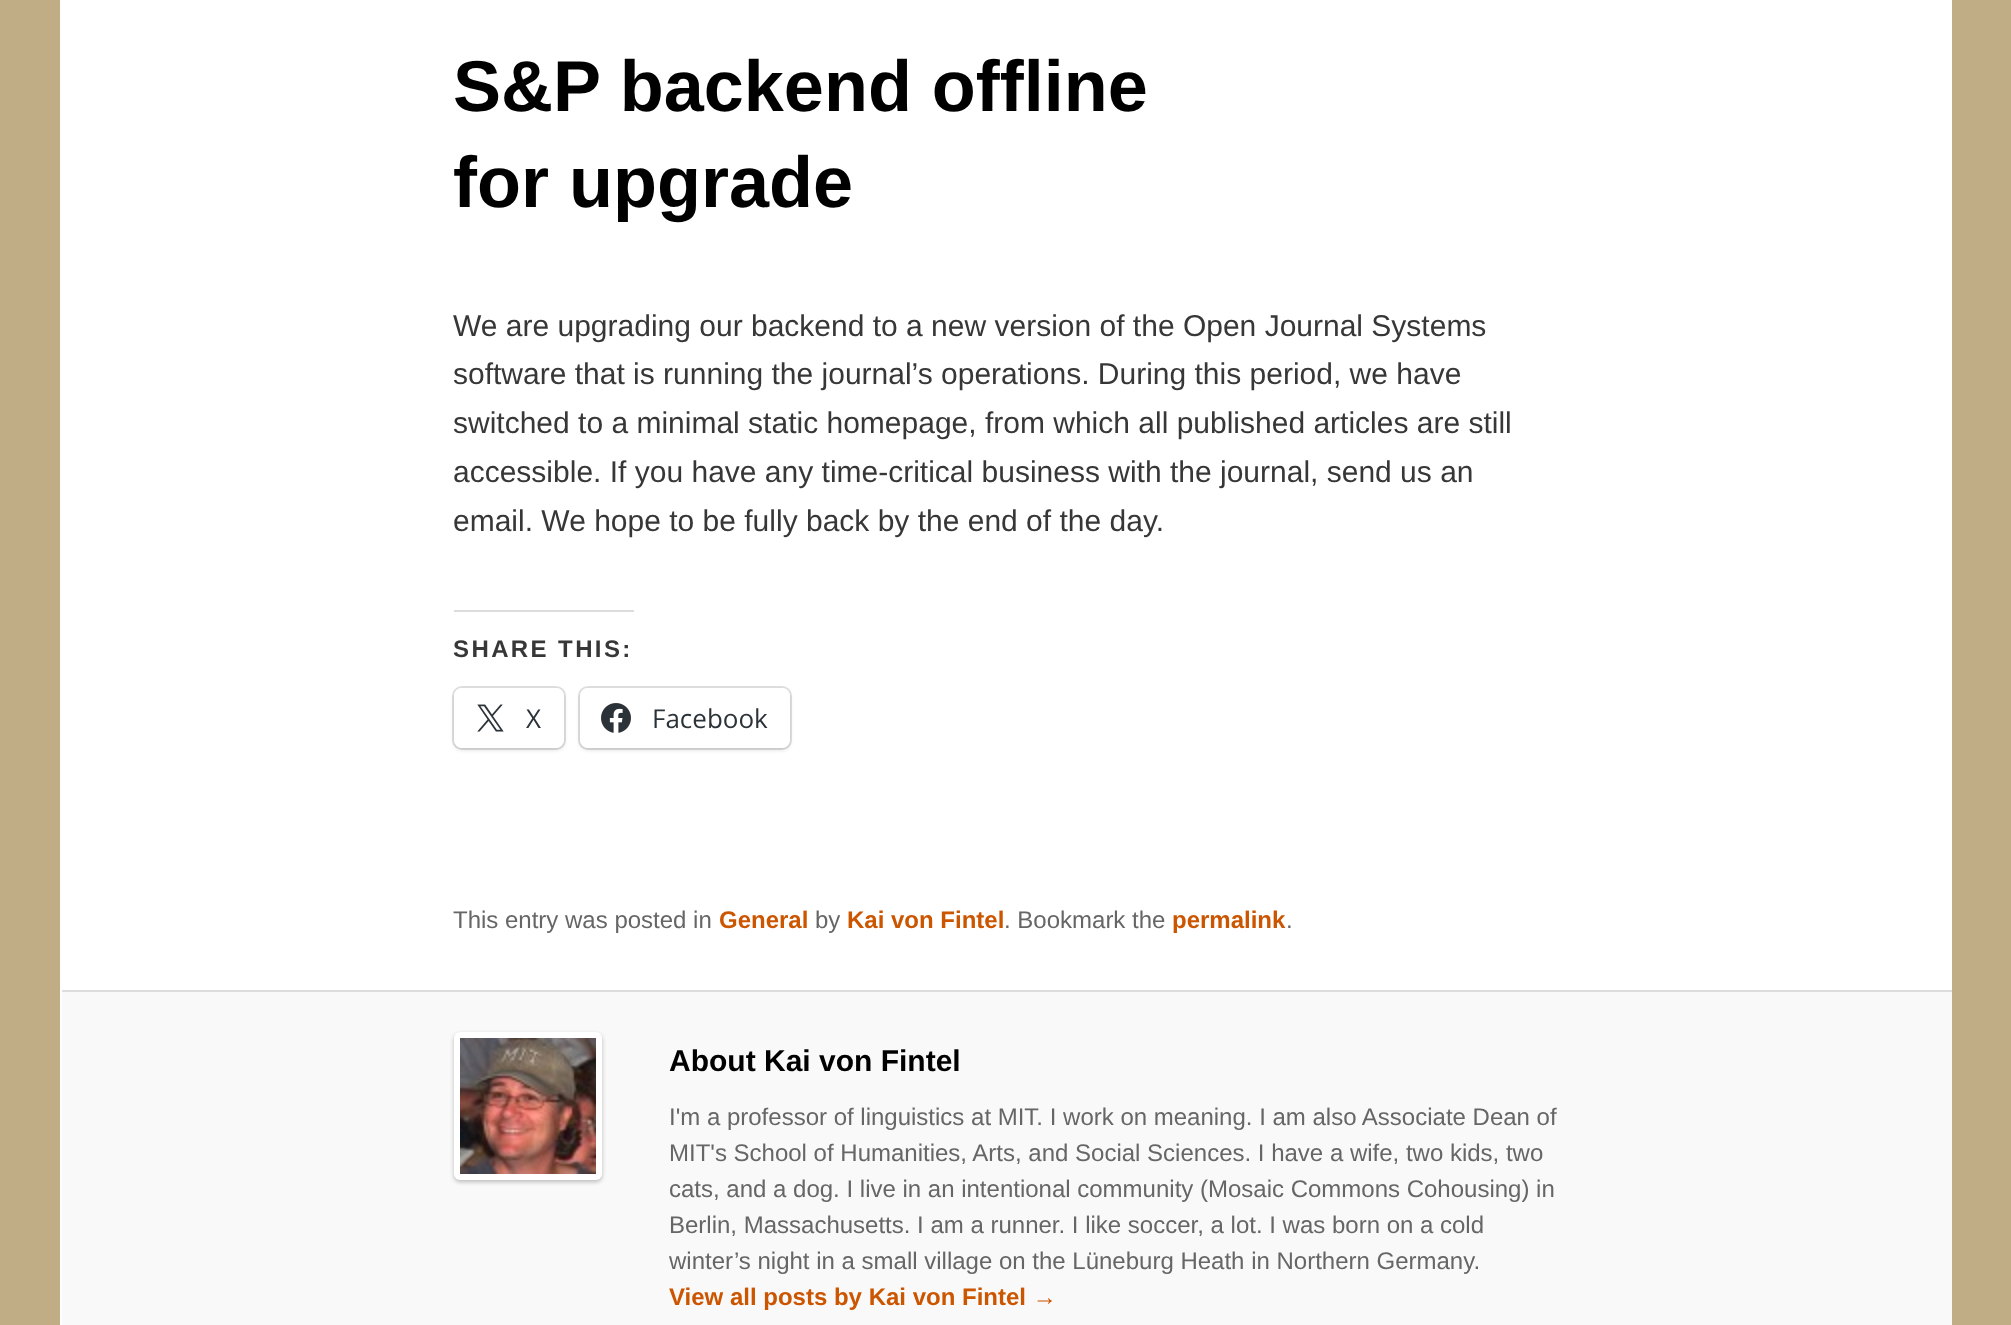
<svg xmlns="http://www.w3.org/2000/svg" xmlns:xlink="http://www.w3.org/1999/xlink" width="2011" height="1325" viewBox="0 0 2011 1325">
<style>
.cls-1{font:bold 72px Liberation Sans;fill:#000000}
.cls-2{font:30px Liberation Sans;fill:#373737}
.cls-3{font:bold 24px Liberation Sans;letter-spacing:2.4px;fill:#373737}
.cls-4{font:26px Open Sans;fill:#2c3338}
.cls-5{font:24px Liberation Sans;fill:#666666}
.cls-6{font:bold 24px Liberation Sans;fill:#cc5500}
.cls-7{font:bold 30px Liberation Sans;fill:#000000}
</style>
<rect width="100%" height="100%" fill="#c0ac85"/>
<rect fill="#ffffff" x="60" y="0" width="1892" height="1325"/>
<rect fill="#dcdcde" x="454" y="610" width="180" height="2"/>
<rect fill="none" stroke="#e0e0e0" stroke-width="2" x="453" y="687" width="112" height="62" rx="9"/>
<rect fill="#000000" fill-opacity="0.12" filter="blur(2px)" x="454" y="690" width="110" height="60" rx="8"/>
<rect fill="#ffffff" x="454" y="688" width="110" height="60" rx="8"/>
<image xlink:href="image0.png" x="477" y="704" width="27" height="28"/>
<rect fill="none" stroke="#e0e0e0" stroke-width="2" x="579" y="687" width="212" height="62" rx="9"/>
<rect fill="#000000" fill-opacity="0.12" filter="blur(2px)" x="580" y="690" width="210" height="60" rx="8"/>
<rect fill="#ffffff" x="580" y="688" width="210" height="60" rx="8"/>
<image xlink:href="image1.png" x="601" y="703" width="30" height="30"/>
<rect fill="#f9f9f9" x="62" y="992" width="1890" height="333"/>
<rect fill="#dddddd" x="62" y="990" width="1890" height="2"/>
<rect fill="#bbbbbb" filter="blur(2px)" x="454" y="1034" width="148" height="148" rx="6"/>
<rect fill="#ffffff" x="454" y="1032" width="148" height="148" rx="6"/>
<image xlink:href="image2.png" x="460" y="1038" width="136" height="136"/>
<text class="cls-1"><tspan x="453" y="111">S&amp;P backend offline</tspan><tspan x="453" y="207">for upgrade</tspan></text>
<text class="cls-2"><tspan x="453" y="336">We are upgrading our backend to a new version of the Open Journal Systems</tspan><tspan x="453" y="384">software that is running the journal’s operations. During this period, we have</tspan><tspan x="453" y="433">switched to a minimal static homepage, from which all published articles are still</tspan><tspan x="453" y="482">accessible. If you have any time-critical business with the journal, send us an</tspan><tspan x="453" y="531">email. We hope to be fully back by the end of the day.</tspan></text>
<text class="cls-3" x="453" y="657">SHARE THIS:</text>
<text class="cls-4" x="526" y="728">X</text>
<text class="cls-4" x="652" y="728">Facebook</text>
<text class="cls-5" x="453" y="928">This entry was posted in</text>
<text class="cls-6" x="719" y="928">General</text>
<text class="cls-5" x="815" y="928">by</text>
<text class="cls-6" x="847" y="928">Kai von Fintel</text>
<text class="cls-5" x="1004" y="928">. Bookmark the</text>
<text class="cls-6" x="1172" y="928">permalink</text>
<text class="cls-5" x="1286" y="928">.</text>
<text class="cls-7" x="669" y="1071">About Kai von Fintel</text>
<text class="cls-5"><tspan x="669" y="1125">I'm a professor of linguistics at MIT. I work on meaning. I am also Associate Dean of</tspan><tspan x="669" y="1161">MIT's School of Humanities, Arts, and Social Sciences. I have a wife, two kids, two</tspan><tspan x="669" y="1197">cats, and a dog. I live in an intentional community (Mosaic Commons Cohousing) in</tspan><tspan x="669" y="1233">Berlin, Massachusetts. I am a runner. I like soccer, a lot. I was born on a cold</tspan><tspan x="669" y="1269">winter’s night in a small village on the Lüneburg Heath in Northern Germany.</tspan></text>
<text class="cls-6" x="669" y="1305">View all posts by Kai von Fintel →</text>
</svg>
